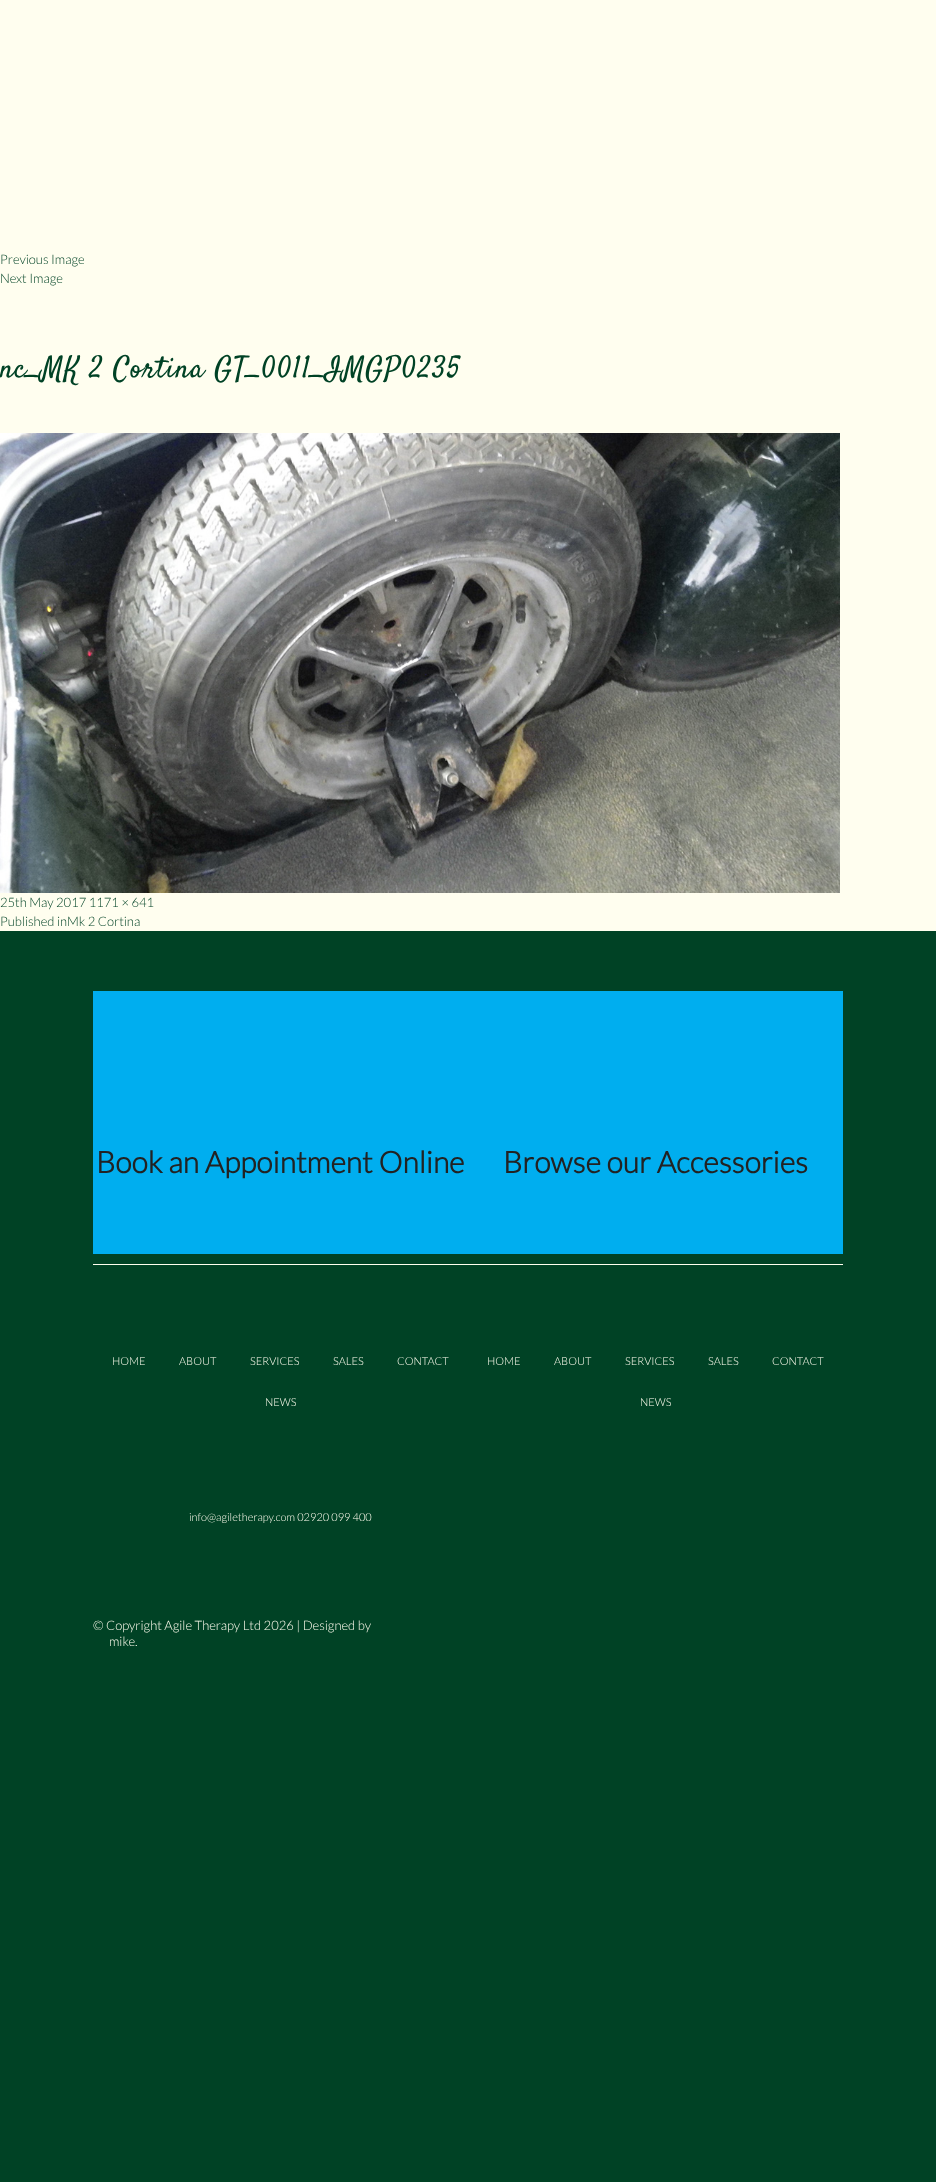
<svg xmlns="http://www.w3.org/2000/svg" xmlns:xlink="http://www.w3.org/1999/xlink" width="936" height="2182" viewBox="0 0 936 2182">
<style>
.cls-1{font:300 13px Lato;fill:#004225}
.cls-2{font:30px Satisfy;letter-spacing:1px;fill:#004225}
.cls-3{font:bold 30px Lato;fill:#222222}
.cls-4{font:300 11px Lato;fill:#fffeef}
.cls-5{font:300 13px Lato;fill:#fffeef}
</style>
<rect width="100%" height="100%" fill="#004225"/>
<rect fill="#fffeef" x="0" y="0" width="936" height="931"/>
<image xlink:href="image0.png" x="0" y="433" width="840" height="460"/>
<rect fill="#00aeef" x="93" y="991" width="750" height="263"/>
<rect fill="#fffeef" x="93" y="1264" width="750" height="1"/>
<text class="cls-1"><tspan x="0" y="264">Previous Image</tspan><tspan x="0" y="283">Next Image</tspan></text>
<text class="cls-2" x="0" y="377">nc_MK 2 Cortina GT_0011_IMGP0235</text>
<text class="cls-1"><tspan x="0" y="907">25th May 2017 1171 × 641</tspan><tspan x="0" y="926">Published inMk 2 Cortina</tspan></text>
<text class="cls-3" x="96" y="1173">Book an Appointment Online</text>
<text class="cls-3" x="503" y="1173">Browse our Accessories</text>
<text class="cls-4" x="112" y="1365">HOME</text>
<text class="cls-4" x="179" y="1365">ABOUT</text>
<text class="cls-4" x="250" y="1365">SERVICES</text>
<text class="cls-4" x="333" y="1365">SALES</text>
<text class="cls-4" x="397" y="1365">CONTACT</text>
<text class="cls-4" x="265" y="1406">NEWS</text>
<text class="cls-4" x="487" y="1365">HOME</text>
<text class="cls-4" x="554" y="1365">ABOUT</text>
<text class="cls-4" x="625" y="1365">SERVICES</text>
<text class="cls-4" x="708" y="1365">SALES</text>
<text class="cls-4" x="772" y="1365">CONTACT</text>
<text class="cls-4" x="640" y="1406">NEWS</text>
<text class="cls-4" x="189" y="1521">info@agiletherapy.com 02920 099 400</text>
<text class="cls-5" x="93" y="1630">© Copyright Agile Therapy Ltd 2026 | Designed by</text>
<text class="cls-5" x="109" y="1646">mike.</text>
</svg>
